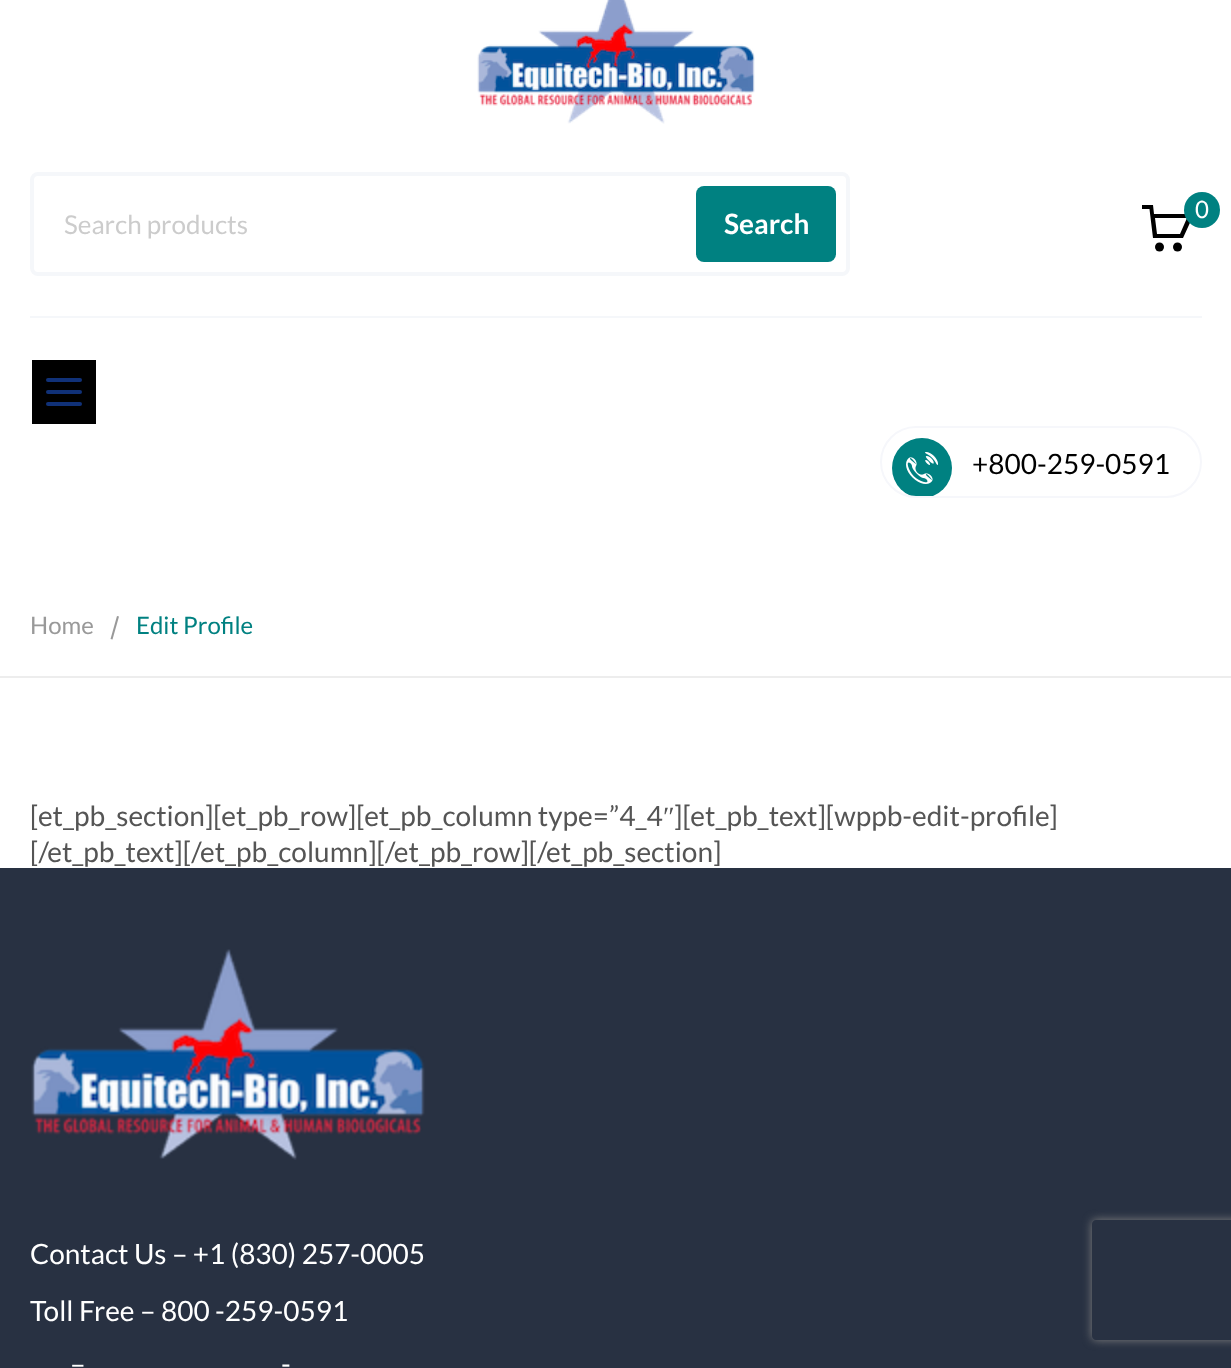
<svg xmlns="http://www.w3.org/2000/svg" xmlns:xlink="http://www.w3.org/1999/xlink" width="1231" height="1368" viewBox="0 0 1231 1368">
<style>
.cls-1{font:24px Lato;fill:#ffffff}
.cls-2{font:26px Lato;fill:#cccccc}
.cls-3{font:bold 28px Lato;fill:#ffffff}
.cls-4{font:28px Lato;fill:#000000}
.cls-5{font:24px Lato;fill:#999999}
.cls-6{font:24px Lato;fill:#008181}
.cls-7{font:28px Lato;fill:#555555}
.cls-8{font:28px Liberation Serif;fill:#555555}
.cls-9{font:28px Lato;fill:#ffffff}
</style>
<defs>
<clipPath id="clip1"><path d="M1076 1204H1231V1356H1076ZM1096 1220H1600C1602 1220 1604 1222 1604 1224V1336C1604 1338 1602 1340 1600 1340H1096C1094 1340 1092 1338 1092 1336V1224C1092 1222 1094 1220 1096 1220Z" clip-rule="evenodd"/></clipPath>
</defs>
<rect width="100%" height="100%" fill="#ffffff"/>
<rect fill="#f5f7fa" x="30" y="316" width="1172" height="2"/>
<image xlink:href="image0.png" x="477" y="0" width="278" height="124"/>
<circle fill="#000000" cx="1159.5" cy="247" r="4.5"/>
<circle fill="#000000" cx="1177.5" cy="247" r="4.5"/>
<rect fill="#000000" x="1142" y="205" width="9" height="4"/>
<path fill="#000000" d="M1154 214L1153 205H1149L1153 238H1183L1194 214ZM1180 234H1157L1155 218H1187Z"/>
<circle fill="#008181" cx="1202" cy="210" r="18"/>
<rect fill="none" stroke="#f5f7fa" stroke-width="4" x="32" y="174" width="816" height="100" rx="6"/>
<rect fill="#008181" x="696" y="186" width="140" height="76" rx="8"/>
<rect fill="#000000" x="32" y="360" width="64" height="64"/>
<rect fill="#103178" x="46" y="378" width="36" height="4" rx="2"/>
<rect fill="#103178" x="46" y="390" width="36" height="4" rx="2"/>
<rect fill="#103178" x="46" y="402" width="36" height="4" rx="2"/>
<circle fill="#008181" cx="922" cy="468" r="30"/>
<image xlink:href="image1.png" x="906" y="452" width="32" height="32"/>
<rect fill="none" stroke="#f6f7fb" stroke-width="2" x="881" y="427" width="320" height="70" rx="35"/>
<rect fill="#ededed" x="0" y="676" width="1231" height="2"/>
<path fill="#999999" d="M117 616L119 616.5L112.5 639.5L110.5 639Z"/>
<rect fill="#283142" x="0" y="868" width="1231" height="500"/>
<image xlink:href="image2.png" x="31" y="949" width="394" height="211"/>
<g clip-path="url(#clip1)">
<rect fill="#808080" filter="blur(5px)" x="1092" y="1220" width="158" height="120" rx="4"/>
</g>
<text class="cls-1" x="1195" y="218">0</text>
<text class="cls-2" x="64" y="234">Search products</text>
<text class="cls-3" x="724" y="234">Search</text>
<text class="cls-4" x="972" y="474">+800-259-0591</text>
<text class="cls-5" x="30" y="634">Home</text>
<text class="cls-6" x="136" y="634">Edit Profile</text>
<text class="cls-7" x="30" y="826">[et_pb_section][et_pb_row][et_pb_column type=”4_4</text>
<text class="cls-8" x="663" y="826">″</text>
<text class="cls-7" x="674" y="826">][et_pb_text][wppb-edit-profile]</text>
<text class="cls-7" x="30" y="862">[/et_pb_text][/et_pb_column][/et_pb_row][/et_pb_section]</text>
<text class="cls-9" x="30" y="1264">Contact Us – +1 (830) 257-0005</text>
<text class="cls-9" x="30" y="1321">Toll Free – 800 -259-0591</text>
<text class="cls-9" x="70" y="1374">–</text>
<text class="cls-9" x="281" y="1374">-</text>
</svg>
